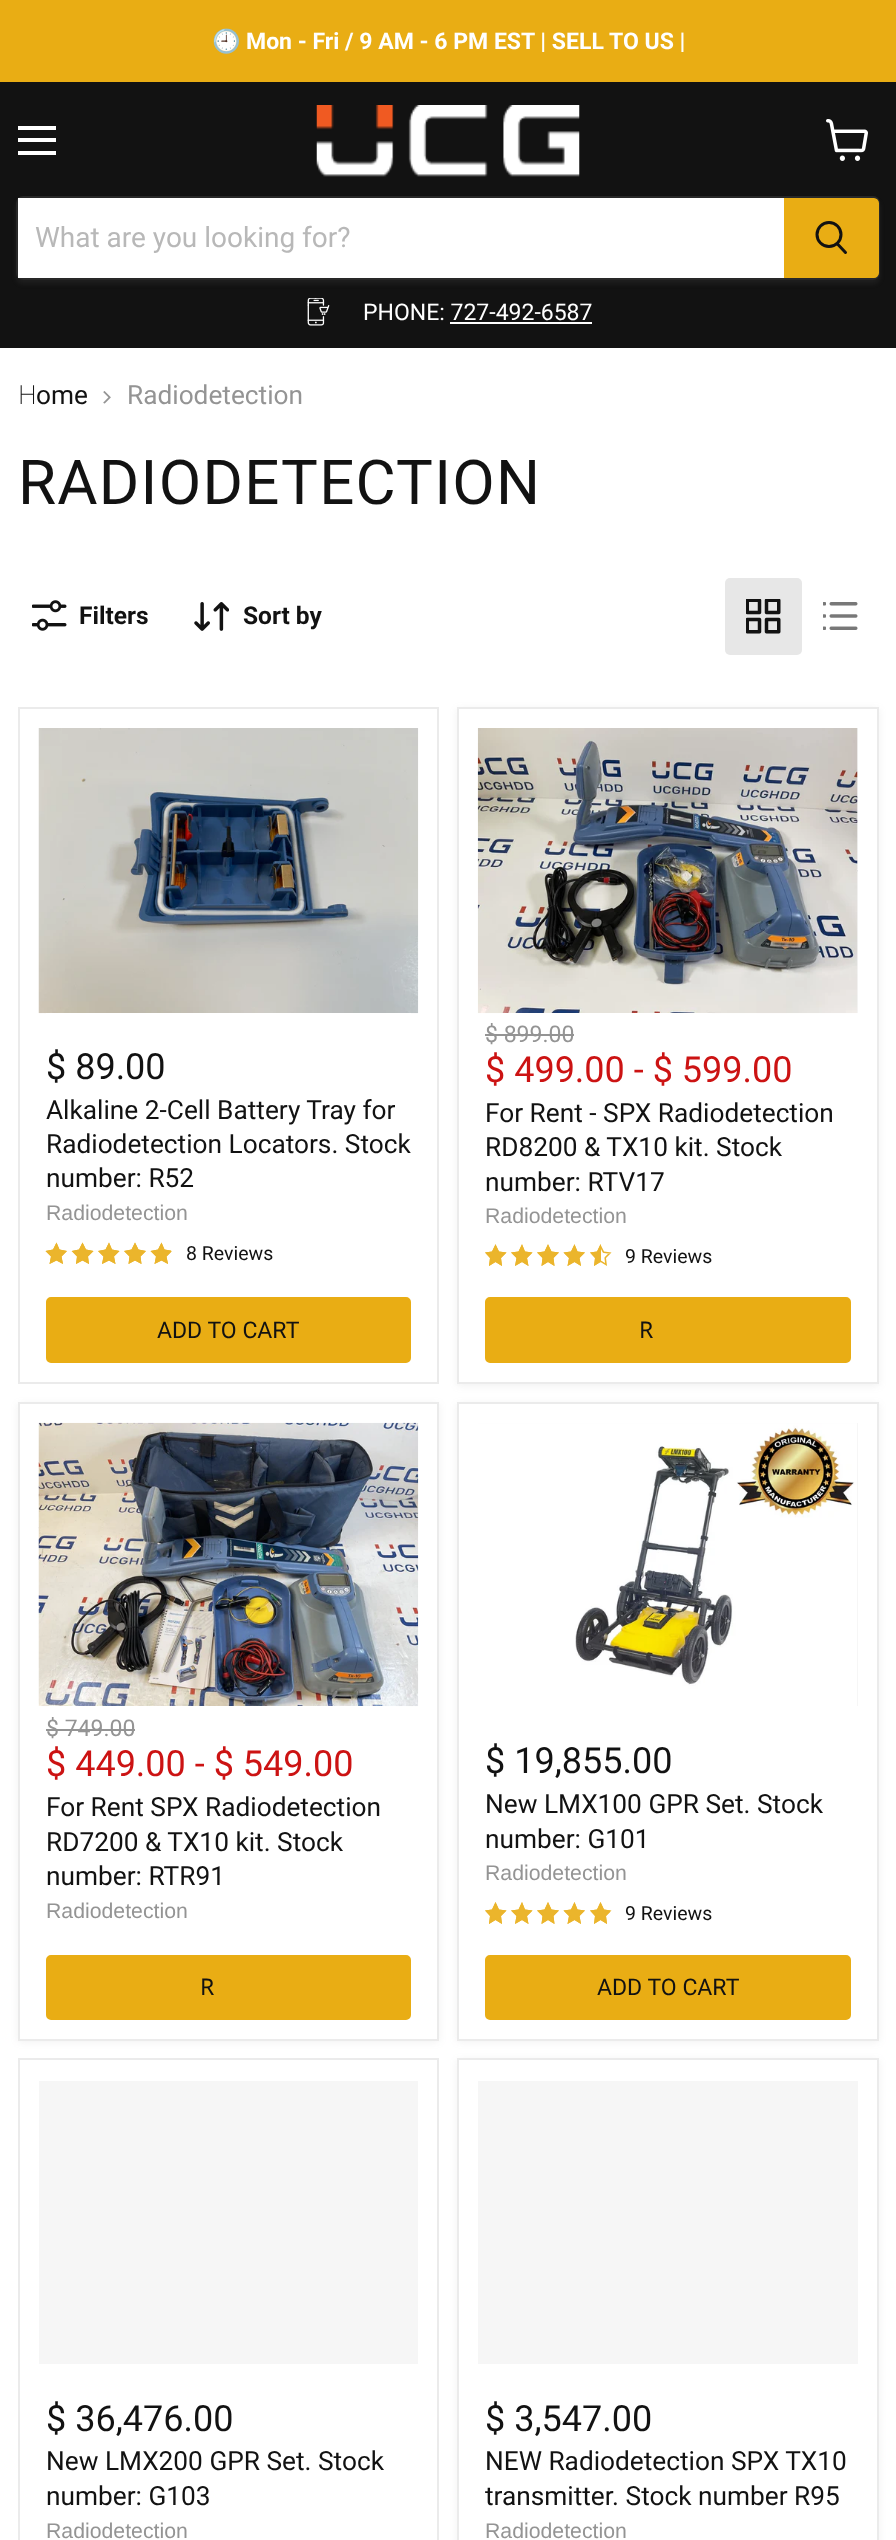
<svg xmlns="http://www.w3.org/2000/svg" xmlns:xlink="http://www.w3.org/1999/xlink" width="896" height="2540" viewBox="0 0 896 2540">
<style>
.cls-1{font:bold 23px Noto Color Emoji;fill:#ffffff}
.cls-2{font:bold 23px Roboto;fill:#ffffff}
.cls-3{font:28px Roboto;fill:#b8b8b8}
.cls-4{font:23px Roboto;fill:#ffffff}
.cls-5{font:200 26.25px Noto Sans;fill:#121212}
.cls-6{font:26.25px Roboto;fill:#121212}
.cls-7{font:26.25px Roboto;fill:#949494}
.cls-8{font:61.75px Roboto;letter-spacing:1.25px;fill:#121212}
.cls-9{font:bold 24.5px Roboto;fill:#121212}
.cls-10{font:36px Roboto;fill:#121212}
.cls-11{font:21.25px Liberation Sans;fill:#949494}
.cls-12{font:19.5px Roboto;fill:#121212}
.cls-13{font:23px Roboto;fill:#121212}
.cls-14{font:23px Roboto;fill:#949494}
.cls-15{font:36px Roboto;fill:#cc1313}
.cls-16{font:23px Noto Sans;fill:#121212}
</style>
<defs>
<clipPath id="clip1"><path d="M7 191H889V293H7ZM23 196H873C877 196 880 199 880 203V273C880 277 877 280 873 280H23C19 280 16 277 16 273V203C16 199 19 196 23 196Z" clip-rule="evenodd"/></clipPath>
<clipPath id="clip2"><path d="M56.5 1242.5L59.5 1249.5L67 1251L61.5 1256.5L63 1264L56.5 1260.5L49.5 1264L51 1256.5L45.5 1251L53 1249.5Z"/></clipPath>
<clipPath id="clip3"><path d="M82.5 1242.5L86 1249.5L93.5 1251L88 1256.5L89 1264L82.5 1260.5L76 1264L77 1256.5L71.5 1251L79 1249.5Z"/></clipPath>
<clipPath id="clip4"><path d="M109 1242.5L112 1249.5L119.5 1251L114 1256.5L115.5 1264L109 1260.5L102 1264L103.5 1256.5L98 1251L105.5 1249.5Z"/></clipPath>
<clipPath id="clip5"><path d="M135 1242.5L138.5 1249.5L146 1251L140.5 1256.5L141.5 1264L135 1260.5L128.5 1264L129.5 1256.5L124 1251L131.5 1249.5Z"/></clipPath>
<clipPath id="clip6"><path d="M161.5 1242.5L164.5 1249.5L172 1251L166.5 1256.5L168 1264L161.5 1260.5L154.5 1264L156 1256.5L150.5 1251L158 1249.5Z"/></clipPath>
<clipPath id="clip7"><path d="M495.5 1244.5L499 1251.5L506.5 1252.5L501 1258L502 1266L495.5 1262L489 1266L490 1258L485 1252.5L492 1251.5Z"/></clipPath>
<clipPath id="clip8"><path d="M522 1244.5L525 1251.5L532.5 1252.5L527 1258L528.5 1266L522 1262L515 1266L516.5 1258L511 1252.5L518.5 1251.5Z"/></clipPath>
<clipPath id="clip9"><path d="M548 1244.5L551.5 1251.5L559 1252.5L553.5 1258L554.5 1266L548 1262L541.5 1266L542.5 1258L537 1252.5L544.5 1251.5Z"/></clipPath>
<clipPath id="clip10"><path d="M574.5 1244.5L577.5 1251.5L585 1252.5L579.5 1258L581 1266L574.5 1262L567.5 1266L569 1258L563.5 1252.5L571 1251.5Z"/></clipPath>
<clipPath id="clip11"><path d="M600.5 1244.5L604 1251.5L611.5 1252.5L606 1258L607 1266L600.5 1262L594 1266L595 1258L590 1252.5L597 1251.5Z"/></clipPath>
<clipPath id="clip12"><path d="M495.5 1902L499 1909.5L506.5 1910.5L501 1916L502 1924L495.5 1920L489 1924L490 1916L485 1910.5L492 1909.5Z"/></clipPath>
<clipPath id="clip13"><path d="M522 1902L525 1909.5L532.5 1910.5L527 1916L528.5 1924L522 1920L515 1924L516.5 1916L511 1910.5L518.5 1909.5Z"/></clipPath>
<clipPath id="clip14"><path d="M548 1902L551.5 1909.5L559 1910.5L553.5 1916L554.5 1924L548 1920L541.5 1924L542.5 1916L537 1910.5L544.5 1909.5Z"/></clipPath>
<clipPath id="clip15"><path d="M574.5 1902L577.5 1909.5L585 1910.5L579.5 1916L581 1924L574.5 1920L567.5 1924L569 1916L563.5 1910.5L571 1909.5Z"/></clipPath>
<clipPath id="clip16"><path d="M600.5 1902L604 1909.5L611.5 1910.5L606 1916L607 1924L600.5 1920L594 1924L595 1916L590 1910.5L597 1909.5Z"/></clipPath>
</defs>
<rect width="100%" height="100%" fill="#ffffff"/>
<rect fill="#e9ad14" x="0" y="0" width="896" height="82"/>
<rect fill="#121212" x="0" y="82" width="896" height="266"/>
<rect fill="#ffffff" x="18" y="126" width="38" height="4"/>
<rect fill="#ffffff" x="18" y="138" width="38" height="4"/>
<rect fill="#ffffff" x="18" y="151" width="38" height="4"/>
<image xlink:href="image0.png" x="826" y="119" width="42" height="42"/>
<image xlink:href="image1.png" x="316" y="105" width="264" height="72"/>
<g clip-path="url(#clip1)">
<rect fill="#808080" fill-opacity="0.11" filter="blur(2.5px)" x="16" y="200" width="864" height="84" rx="7"/>
</g>
<rect fill="none" stroke="#808080" stroke-opacity="0.2" stroke-width="2" x="17" y="197" width="862" height="82" rx="6"/>
<rect fill="#ffffff" x="18" y="198" width="766" height="80"/>
<path fill="#e9ad14" stroke="#e9ad14" stroke-width="2" d="M785 199H874C876 199 878 201 878 203V273C878 275 876 277 874 277H785Z"/>
<path fill="none" stroke="#121212" stroke-width="3" stroke-linecap="round" d="M845.5 252.5L837.5 244"/>
<circle fill="none" stroke="#121212" stroke-width="3" cx="829" cy="234.5" r="12"/>
<image xlink:href="image2.png" x="307" y="298" width="23" height="28"/>
<rect fill="#ffffff" x="450" y="322" width="142" height="2"/>
<image xlink:href="image3.png" x="103" y="391" width="8" height="13"/>
<image xlink:href="image4.png" x="32" y="600" width="35" height="31"/>
<image xlink:href="image5.png" x="194" y="602" width="35" height="29"/>
<rect fill="#e7e7e7" x="725" y="578" width="77" height="77" rx="5"/>
<image xlink:href="image6.png" x="746" y="599" width="35" height="35"/>
<image xlink:href="image7.png" x="823" y="602" width="35" height="28"/>
<rect fill="none" stroke="#ebebeb" stroke-width="2" x="19" y="708" width="419" height="675"/>
<image xlink:href="image8.png" x="38" y="728" width="381" height="286"/>
<rect fill="#ffffff" x="46" y="1013" width="365" height="1"/>
<path fill="#ebb52c" d="M56.5 1242.5L53 1249.5L45.5 1251L51 1256.5L49.5 1264L56.5 1260.5L63 1264L61.5 1256.5L67 1251L59.5 1249.5Z"/>
<g clip-path="url(#clip2)">
<path fill="none" stroke="#ebb52c" stroke-width="3.1" stroke-linecap="round" stroke-linejoin="round" d="M56.5 1242.5L59.5 1249.5L67 1251L61.5 1256.5L63 1264L56.5 1260.5L49.5 1264L51 1256.5L45.5 1251L53 1249.5Z"/>
</g>
<path fill="#ebb52c" d="M82.5 1242.5L79 1249.5L72 1251L77 1256.5L76 1264L82.5 1260.5L89 1264L88 1256.5L93.5 1251L86 1249.5Z"/>
<g clip-path="url(#clip3)">
<path fill="none" stroke="#ebb52c" stroke-width="3.1" stroke-linecap="round" stroke-linejoin="round" d="M82.5 1242.5L86 1249.5L93.5 1251L88 1256.5L89 1264L82.5 1260.5L76 1264L77 1256.5L71.5 1251L79 1249.5Z"/>
</g>
<path fill="#ebb52c" d="M109 1242.5L105.5 1249.5L98 1251L103.5 1256.5L102 1264L109 1260.5L115.5 1264L114 1256.5L119.5 1251L112 1249.5Z"/>
<g clip-path="url(#clip4)">
<path fill="none" stroke="#ebb52c" stroke-width="3.1" stroke-linecap="round" stroke-linejoin="round" d="M109 1242.5L112 1249.5L119.5 1251L114 1256.5L115.5 1264L109 1260.5L102 1264L103.5 1256.5L98 1251L105.5 1249.5Z"/>
</g>
<path fill="#ebb52c" d="M135 1242.5L131.5 1249.5L124 1251L129.5 1256.5L128.5 1264L135 1260.5L141.5 1264L140.5 1256.5L146 1251L138.5 1249.5Z"/>
<g clip-path="url(#clip5)">
<path fill="none" stroke="#ebb52c" stroke-width="3.1" stroke-linecap="round" stroke-linejoin="round" d="M135 1242.5L138.5 1249.5L146 1251L140.5 1256.5L141.5 1264L135 1260.5L128.5 1264L129.5 1256.5L124 1251L131.5 1249.5Z"/>
</g>
<path fill="#ebb52c" d="M161.5 1242.5L164.5 1249.5L171 1250.5V1252L166.5 1256.5L168 1264L161.5 1260.5L154.5 1264L156 1256.5L150.5 1251L158 1249.5Z"/>
<g clip-path="url(#clip6)">
<path fill="none" stroke="#ebb52c" stroke-width="3.1" stroke-linecap="round" stroke-linejoin="round" d="M161.5 1242.5L164.5 1249.5L172 1251L166.5 1256.5L168 1264L161.5 1260.5L154.5 1264L156 1256.5L150.5 1251L158 1249.5Z"/>
</g>
<rect fill="#e9ad14" stroke="#e9ad14" stroke-width="2" x="47" y="1298" width="363" height="64" rx="4"/>
<rect fill="#808080" fill-opacity="0.11" filter="blur(3.5px)" x="457" y="709" width="422" height="677"/>
<rect fill="#ffffff" stroke="#ebebeb" stroke-width="2" x="458" y="708" width="420" height="675"/>
<rect fill="#f6f6f6" x="857" y="728" width="1" height="285"/>
<image xlink:href="image9.png" x="477" y="728" width="381" height="286"/>
<rect fill="#ffffff" x="502" y="1013" width="210" height="1"/>
<rect fill="#949494" x="485" y="1034" width="89" height="2"/>
<path fill="#ebb52c" d="M495.5 1244L492 1251.5L485 1252.5L490 1258L489 1266L495.5 1262L502 1266L501 1258L506.5 1252.5L499 1251.5Z"/>
<g clip-path="url(#clip7)">
<path fill="none" stroke="#ebb52c" stroke-width="3.1" stroke-linecap="round" stroke-linejoin="round" d="M495.5 1244.5L499 1251.5L506.5 1252.5L501 1258L502 1266L495.5 1262L489 1266L490 1258L485 1252.5L492 1251.5Z"/>
</g>
<path fill="#ebb52c" d="M522 1244L518.5 1251.5L511 1252.5L516.5 1258L515 1266L522 1262L528.5 1266L527 1258L532.5 1252.5L525 1251.5Z"/>
<g clip-path="url(#clip8)">
<path fill="none" stroke="#ebb52c" stroke-width="3.1" stroke-linecap="round" stroke-linejoin="round" d="M522 1244.5L525 1251.5L532.5 1252.5L527 1258L528.5 1266L522 1262L515 1266L516.5 1258L511 1252.5L518.5 1251.5Z"/>
</g>
<path fill="#ebb52c" d="M548 1244L544.5 1251.5L537 1252.5L542.5 1258L541.5 1266L548 1262L554.5 1266L553.5 1258L559 1252.5L551.5 1251.5Z"/>
<g clip-path="url(#clip9)">
<path fill="none" stroke="#ebb52c" stroke-width="3.1" stroke-linecap="round" stroke-linejoin="round" d="M548 1244.5L551.5 1251.5L559 1252.5L553.5 1258L554.5 1266L548 1262L541.5 1266L542.5 1258L537 1252.5L544.5 1251.5Z"/>
</g>
<path fill="#ebb52c" d="M574.5 1244L571 1251.5L563.5 1252.5L569 1258L567.5 1266L574.5 1262L581 1266L579.5 1258L585 1252.5L577.5 1251.5Z"/>
<g clip-path="url(#clip10)">
<path fill="none" stroke="#ebb52c" stroke-width="3.1" stroke-linecap="round" stroke-linejoin="round" d="M574.5 1244.5L577.5 1251.5L585 1252.5L579.5 1258L581 1266L574.5 1262L567.5 1266L569 1258L563.5 1252.5L571 1251.5Z"/>
</g>
<path fill="#ebb52c" d="M600.5 1244L601 1245V1262.5L600.5 1262L594 1266L595 1258L590 1252.5L597 1251.5Z"/>
<g clip-path="url(#clip11)">
<path fill="none" stroke="#ebb52c" stroke-width="3.1" stroke-linecap="round" stroke-linejoin="round" d="M600.5 1244.5L604 1251.5L611.5 1252.5L606 1258L607 1266L600.5 1262L594 1266L595 1258L590 1252.5L597 1251.5Z"/>
</g>
<rect fill="#e9ad14" stroke="#e9ad14" stroke-width="2" x="486" y="1298" width="364" height="64" rx="4"/>
<rect fill="#808080" fill-opacity="0.11" filter="blur(3.5px)" x="18" y="1404" width="421" height="638"/>
<rect fill="#ffffff" stroke="#ebebeb" stroke-width="2" x="19" y="1403" width="419" height="637"/>
<image xlink:href="image10.png" x="38" y="1422" width="381" height="285"/>
<rect fill="#ffffff" x="48" y="1706" width="335" height="1"/>
<rect fill="#949494" x="46" y="1729" width="89" height="2"/>
<rect fill="#e9ad14" stroke="#e9ad14" stroke-width="2" x="47" y="1956" width="363" height="63" rx="4"/>
<rect fill="#808080" fill-opacity="0.11" filter="blur(3.5px)" x="457" y="1404" width="422" height="638"/>
<rect fill="#ffffff" stroke="#ebebeb" stroke-width="2" x="458" y="1403" width="420" height="637"/>
<rect fill="#f6f6f6" x="478" y="1423" width="380" height="283"/>
<image xlink:href="image11.png" x="478" y="1423" width="379" height="283"/>
<path fill="#ebb52c" d="M495.5 1902L492 1909.5L485 1910.5L490 1916L489 1924L495.5 1920L502 1924L501 1916L506.5 1910.5L499 1909.5Z"/>
<g clip-path="url(#clip12)">
<path fill="none" stroke="#ebb52c" stroke-width="3.1" stroke-linecap="round" stroke-linejoin="round" d="M495.5 1902L499 1909.5L506.5 1910.5L501 1916L502 1924L495.5 1920L489 1924L490 1916L485 1910.5L492 1909.5Z"/>
</g>
<path fill="#ebb52c" d="M522 1902L518.5 1909.5L511 1910.5L516.5 1916L515 1924L522 1920L528.5 1924L527 1916L532.5 1910.5L525 1909.5Z"/>
<g clip-path="url(#clip13)">
<path fill="none" stroke="#ebb52c" stroke-width="3.1" stroke-linecap="round" stroke-linejoin="round" d="M522 1902L525 1909.5L532.5 1910.5L527 1916L528.5 1924L522 1920L515 1924L516.5 1916L511 1910.5L518.5 1909.5Z"/>
</g>
<path fill="#ebb52c" d="M548 1902L544.5 1909.5L537 1910.5L542.5 1916L541.5 1924L548 1920L554.5 1924L553.5 1916L559 1910.5L551.5 1909.5Z"/>
<g clip-path="url(#clip14)">
<path fill="none" stroke="#ebb52c" stroke-width="3.1" stroke-linecap="round" stroke-linejoin="round" d="M548 1902L551.5 1909.5L559 1910.5L553.5 1916L554.5 1924L548 1920L541.5 1924L542.5 1916L537 1910.5L544.5 1909.5Z"/>
</g>
<path fill="#ebb52c" d="M574.5 1902L571 1909.5L563.5 1910.5L569 1916L567.5 1924L574.5 1920L581 1924L579.5 1916L585 1910.5L577.5 1909.5Z"/>
<g clip-path="url(#clip15)">
<path fill="none" stroke="#ebb52c" stroke-width="3.1" stroke-linecap="round" stroke-linejoin="round" d="M574.5 1902L577.5 1909.5L585 1910.5L579.5 1916L581 1924L574.5 1920L567.5 1924L569 1916L563.5 1910.5L571 1909.5Z"/>
</g>
<path fill="#ebb52c" d="M600.5 1902L604 1909.5L610 1910.5V1912L606 1916L607 1924L600.5 1920L594 1924L595 1916L590 1910.5L597 1909.5Z"/>
<g clip-path="url(#clip16)">
<path fill="none" stroke="#ebb52c" stroke-width="3.1" stroke-linecap="round" stroke-linejoin="round" d="M600.5 1902L604 1909.5L611.5 1910.5L606 1916L607 1924L600.5 1920L594 1924L595 1916L590 1910.5L597 1909.5Z"/>
</g>
<rect fill="#e9ad14" stroke="#e9ad14" stroke-width="2" x="486" y="1956" width="364" height="63" rx="4"/>
<rect fill="none" stroke="#ebebeb" stroke-width="2" x="19" y="2059" width="419" height="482"/>
<rect fill="#f6f6f6" x="39" y="2081" width="379" height="283"/>
<rect fill="#808080" fill-opacity="0.11" filter="blur(3.5px)" x="457" y="2060" width="422" height="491"/>
<rect fill="#ffffff" stroke="#ebebeb" stroke-width="2" x="458" y="2059" width="420" height="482"/>
<rect fill="#f6f6f6" x="478" y="2081" width="380" height="283"/>
<text class="cls-1" x="212" y="49">🕘</text>
<text class="cls-2" x="246" y="49">Mon - Fri / 9 AM - 6 PM EST | SELL TO US |</text>
<text class="cls-3" x="35" y="247">What are you looking for?</text>
<text class="cls-4" x="363" y="320">PHONE: 727-492-6587</text>
<text class="cls-5" x="18" y="404">H</text>
<text class="cls-6" x="36" y="404">ome</text>
<text class="cls-7" x="127" y="404">Radiodetection</text>
<text class="cls-8" x="18" y="504">RADIODETECTION</text>
<text class="cls-9" x="79" y="624">Filters</text>
<text class="cls-9" x="243" y="624">Sort by</text>
<text class="cls-10" x="46" y="1079">$ 89.00</text>
<text class="cls-6"><tspan x="46" y="1119">Alkaline 2-Cell Battery Tray for</tspan><tspan x="46" y="1153">Radiodetection Locators. Stock</tspan><tspan x="46" y="1187">number: R52</tspan></text>
<text class="cls-11" x="46" y="1220">Radiodetection</text>
<text class="cls-12" x="186" y="1260">8 Reviews</text>
<text class="cls-13" x="157" y="1338">ADD TO CART</text>
<text class="cls-14" x="485" y="1042">$ 899.00</text>
<text class="cls-15" x="485" y="1082">$ 499.00 - $ 599.00</text>
<text class="cls-6"><tspan x="485" y="1122">For Rent - SPX Radiodetection</tspan><tspan x="485" y="1156">RD8200 &amp; TX10 kit. Stock</tspan><tspan x="485" y="1191">number: RTV17</tspan></text>
<text class="cls-11" x="485" y="1223">Radiodetection</text>
<text class="cls-12" x="625" y="1263">9 Reviews</text>
<text class="cls-16" x="639" y="1338">R</text>
<text class="cls-14" x="46" y="1736">$ 749.00</text>
<text class="cls-15" x="46" y="1776">$ 449.00 - $ 549.00</text>
<text class="cls-6"><tspan x="46" y="1816">For Rent SPX Radiodetection</tspan><tspan x="46" y="1851">RD7200 &amp; TX10 kit. Stock</tspan><tspan x="46" y="1885">number: RTR91</tspan></text>
<text class="cls-11" x="46" y="1918">Radiodetection</text>
<text class="cls-16" x="200" y="1995">R</text>
<text class="cls-10" x="485" y="1773">$ 19,855.00</text>
<text class="cls-6"><tspan x="485" y="1813">New LMX100 GPR Set. Stock</tspan><tspan x="485" y="1848">number: G101</tspan></text>
<text class="cls-11" x="485" y="1880">Radiodetection</text>
<text class="cls-12" x="625" y="1920">9 Reviews</text>
<text class="cls-13" x="597" y="1995">ADD TO CART</text>
<text class="cls-10" x="46" y="2431">$ 36,476.00</text>
<text class="cls-6"><tspan x="46" y="2470">New LMX200 GPR Set. Stock</tspan><tspan x="46" y="2505">number: G103</tspan></text>
<text class="cls-11" x="46" y="2538">Radiodetection</text>
<text class="cls-10" x="485" y="2431">$ 3,547.00</text>
<text class="cls-6"><tspan x="485" y="2470">NEW Radiodetection SPX TX10</tspan><tspan x="485" y="2505">transmitter. Stock number R95</tspan></text>
<text class="cls-11" x="485" y="2538">Radiodetection</text>
</svg>
